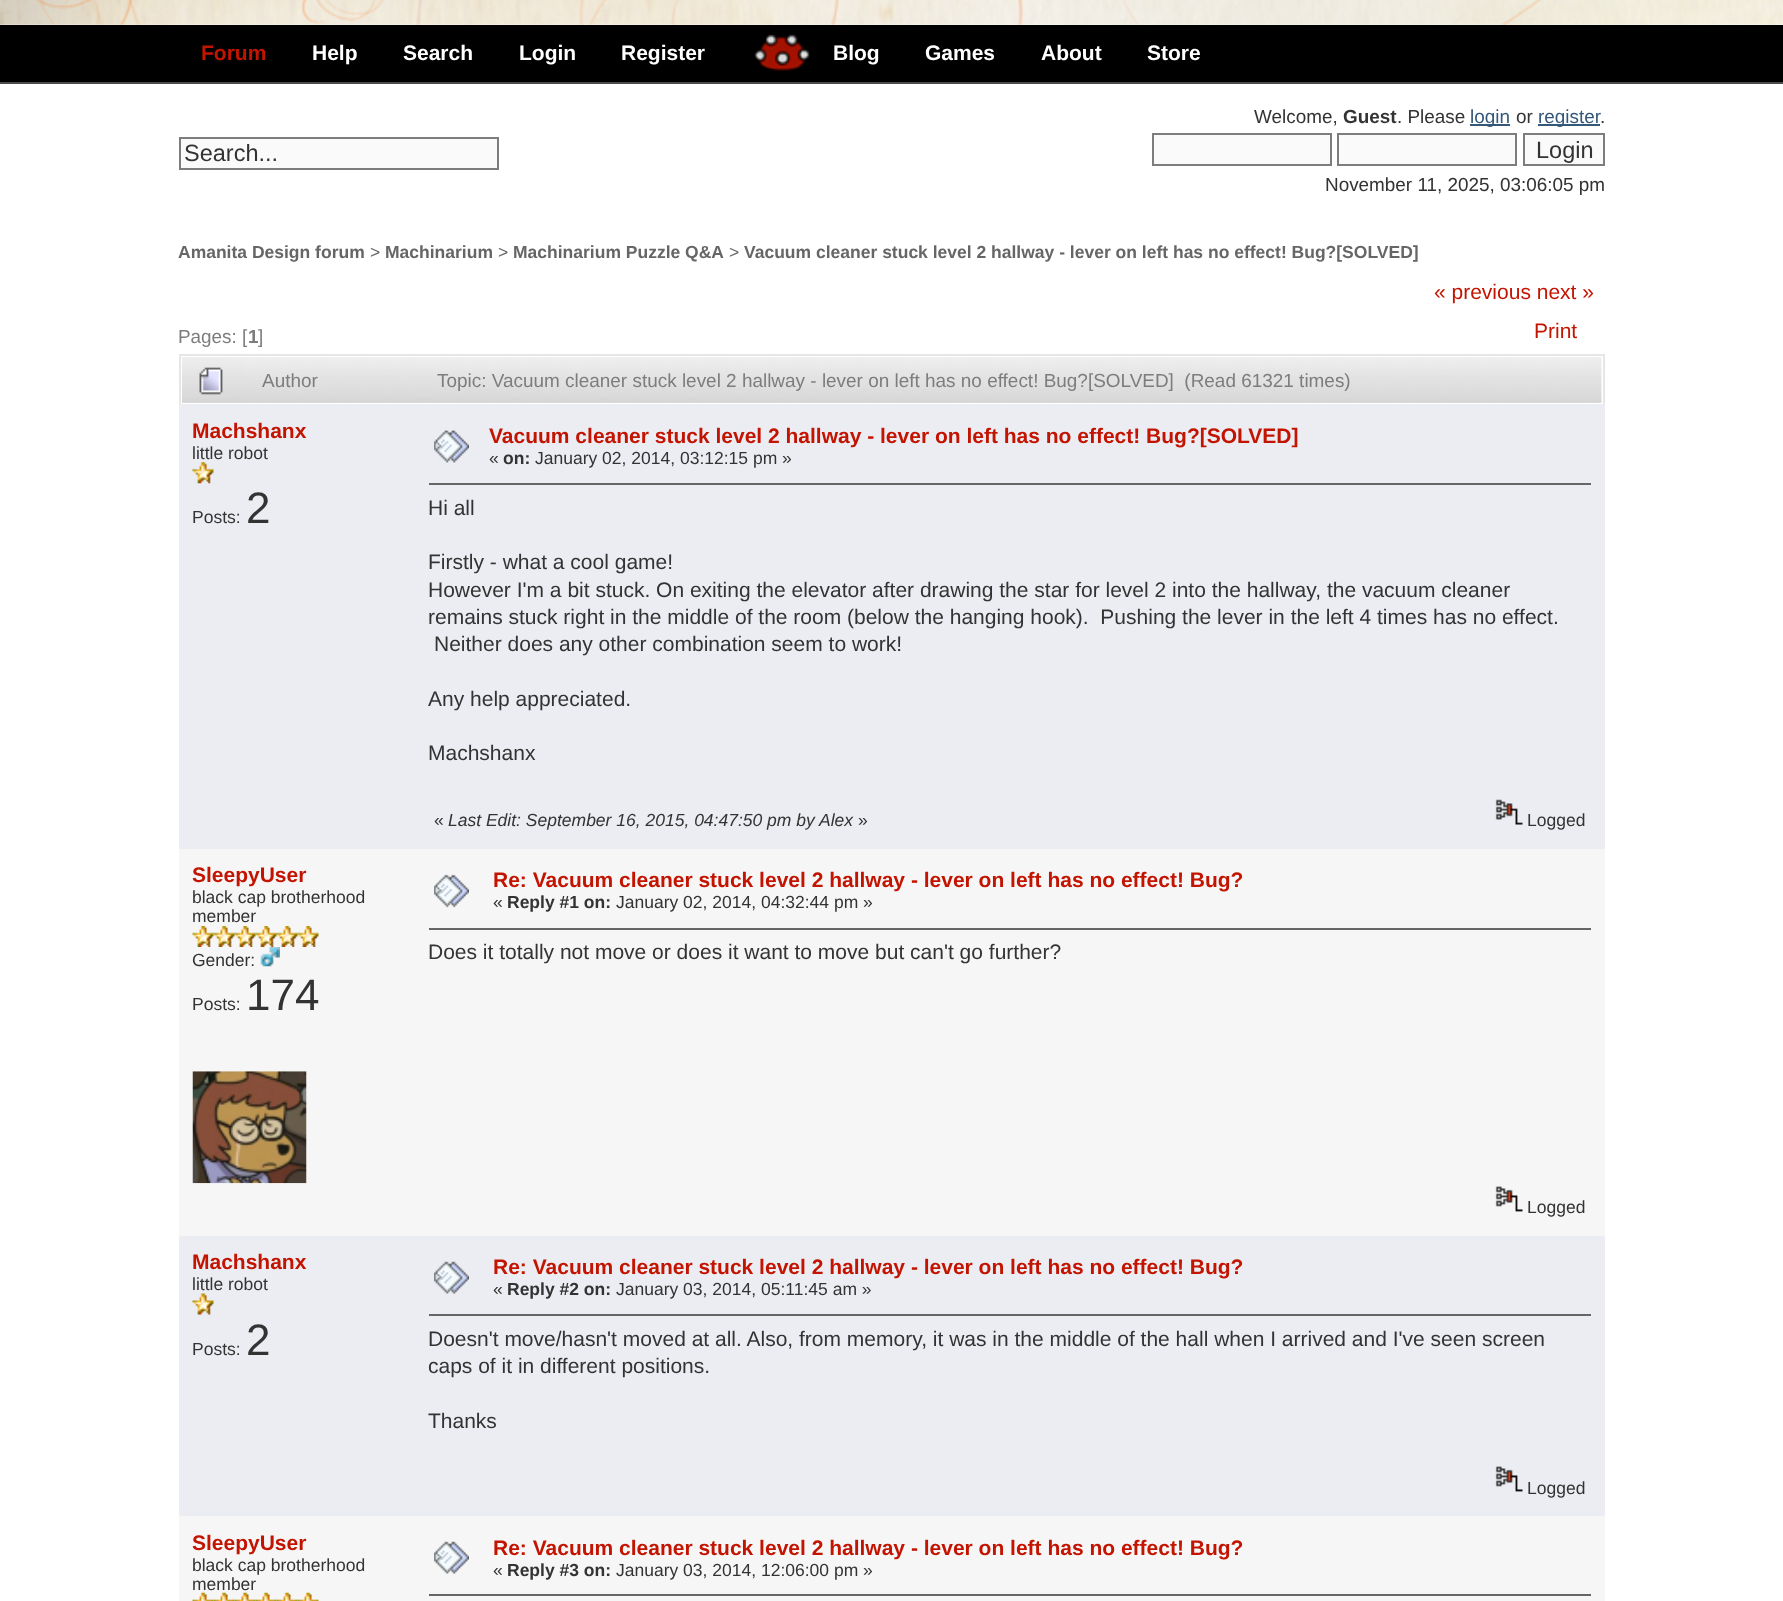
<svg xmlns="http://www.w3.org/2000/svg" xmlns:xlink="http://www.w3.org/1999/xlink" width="1783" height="1601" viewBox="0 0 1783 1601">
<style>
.cls-1{font:bold 21px Liberation Sans;fill:#c31401}
.cls-2{font:bold 21px Liberation Sans;fill:#ffffff}
.cls-3{font:23.5px Liberation Sans;fill:#333333}
.cls-4{font:18.9px Liberation Sans;fill:#333333}
.cls-5{font:bold 18.9px Liberation Sans;fill:#333333}
.cls-6{font:18.9px Liberation Sans;fill:#33587a}
.cls-7{font:bold 17.5px Liberation Sans;fill:#666666}
.cls-8{font:17.5px Liberation Sans;fill:#666666}
.cls-9{font:18.9px Liberation Sans;fill:#7d7d7d}
.cls-10{font:bold 18.9px Liberation Sans;fill:#7d7d7d}
.cls-11{font:21px Liberation Sans;fill:#c31401}
.cls-12{font:18.95px Liberation Sans;fill:#7d7d7d}
.cls-13{font:17.5px Liberation Sans;fill:#333333}
.cls-14{font:44px Liberation Sans;fill:#333333}
.cls-15{font:bold 17.5px Liberation Sans;fill:#333333}
.cls-16{font:21px Liberation Sans;fill:#333333}
.cls-17{font:italic 17.5px Liberation Sans;fill:#333333}
</style>
<rect width="100%" height="100%" fill="#ffffff"/>
<image xlink:href="image0.png" x="0" y="0" width="1783" height="25"/>
<rect fill="#000000" x="0" y="25" width="1783" height="57"/>
<rect fill="#4c4c4c" x="0" y="82" width="1783" height="2"/>
<image xlink:href="image1.png" x="754" y="34" width="56" height="37"/>
<rect fill="#fafafa" stroke="#7d7d7d" stroke-width="2" x="180" y="138" width="318" height="31"/>
<rect fill="#33587a" x="1470" y="124" width="40" height="2"/>
<rect fill="#33587a" x="1538" y="124" width="62" height="2"/>
<rect fill="#fafafa" stroke="#7d7d7d" stroke-width="2" x="1153" y="134" width="178" height="31"/>
<rect fill="#fafafa" stroke="#7d7d7d" stroke-width="2" x="1338" y="134" width="178" height="31"/>
<rect fill="#fafafa" stroke="#7d7d7d" stroke-width="2" x="1524" y="134" width="80" height="31"/>
<rect fill="#e6e6e6" x="179" y="354" width="1426" height="2"/>
<rect fill="#e6e6e6" x="1603" y="354" width="2" height="50"/>
<rect fill="#e6e6e6" x="179" y="354" width="2" height="50"/>
<image xlink:href="image2.png" x="182" y="357" width="63" height="46"/>
<image xlink:href="image3.png" x="199" y="367" width="24" height="28"/>
<image xlink:href="image4.png" x="245" y="357" width="182" height="46"/>
<image xlink:href="image5.png" x="427" y="357" width="1175" height="46"/>
<rect fill="#ecedf3" x="179" y="404" width="1426" height="445"/>
<image xlink:href="image6.png" x="192" y="462" width="22" height="22"/>
<image xlink:href="image7.png" x="434" y="430" width="35" height="33"/>
<rect fill="#666666" x="429" y="483" width="1162" height="2"/>
<image xlink:href="image8.png" x="1495" y="799" width="28" height="26"/>
<rect fill="#f6f6f6" x="179" y="849" width="1426" height="387"/>
<image xlink:href="image9.png" x="192" y="926" width="22" height="21"/>
<image xlink:href="image10.png" x="213" y="926" width="22" height="21"/>
<image xlink:href="image11.png" x="234" y="926" width="22" height="21"/>
<image xlink:href="image11.png" x="255" y="926" width="22" height="21"/>
<image xlink:href="image12.png" x="276" y="926" width="22" height="21"/>
<image xlink:href="image12.png" x="297" y="926" width="22" height="21"/>
<image xlink:href="image13.png" x="260" y="947" width="20" height="20"/>
<image xlink:href="image14.png" x="192" y="1071" width="115" height="113"/>
<image xlink:href="image15.png" x="434" y="874" width="35" height="34"/>
<rect fill="#666666" x="429" y="928" width="1162" height="2"/>
<image xlink:href="image16.png" x="1495" y="1186" width="28" height="26"/>
<rect fill="#ecedf3" x="179" y="1236" width="1426" height="280"/>
<image xlink:href="image17.png" x="192" y="1293" width="22" height="22"/>
<image xlink:href="image18.png" x="434" y="1261" width="35" height="33"/>
<rect fill="#666666" x="429" y="1314" width="1162" height="2"/>
<image xlink:href="image19.png" x="1495" y="1466" width="28" height="26"/>
<rect fill="#f6f6f6" x="179" y="1516" width="1426" height="85"/>
<image xlink:href="image20.png" x="192" y="1592" width="22" height="9"/>
<image xlink:href="image21.png" x="213" y="1592" width="22" height="9"/>
<image xlink:href="image22.png" x="234" y="1592" width="22" height="9"/>
<image xlink:href="image22.png" x="255" y="1592" width="22" height="9"/>
<image xlink:href="image23.png" x="276" y="1592" width="22" height="9"/>
<image xlink:href="image23.png" x="297" y="1592" width="22" height="9"/>
<image xlink:href="image24.png" x="434" y="1541" width="35" height="33"/>
<rect fill="#666666" x="429" y="1594" width="1162" height="2"/>
<text class="cls-1" x="201" y="60">Forum</text>
<text class="cls-2" x="312" y="60">Help</text>
<text class="cls-2" x="403" y="60">Search</text>
<text class="cls-2" x="519" y="60">Login</text>
<text class="cls-2" x="621" y="60">Register</text>
<text class="cls-2" x="833" y="60">Blog</text>
<text class="cls-2" x="925" y="60">Games</text>
<text class="cls-2" x="1041" y="60">About</text>
<text class="cls-2" x="1147" y="60">Store</text>
<text class="cls-3" x="184" y="161">Search...</text>
<text class="cls-4" x="1254" y="123">Welcome,</text>
<text class="cls-5" x="1343" y="123">Guest</text>
<text class="cls-4" x="1397" y="123">. Please</text>
<text class="cls-6" x="1470" y="123">login</text>
<text class="cls-4" x="1516" y="123">or</text>
<text class="cls-6" x="1538" y="123">register</text>
<text class="cls-4" x="1600" y="123">.</text>
<text class="cls-3" x="1536" y="158">Login</text>
<text class="cls-4" x="1325" y="191">November 11, 2025, 03:06:05 pm</text>
<text class="cls-7" x="178" y="258">Amanita Design forum</text>
<text class="cls-8" x="370" y="258">&gt;</text>
<text class="cls-7" x="385" y="258">Machinarium</text>
<text class="cls-8" x="498" y="258">&gt;</text>
<text class="cls-7" x="513" y="258">Machinarium Puzzle Q&amp;A</text>
<text class="cls-8" x="729" y="258">&gt;</text>
<text class="cls-7" x="744" y="258">Vacuum cleaner stuck level 2 hallway - lever on left has no effect! Bug?[SOLVED]</text>
<text class="cls-9" x="178" y="343">Pages: [</text>
<text class="cls-10" x="248" y="343">1</text>
<text class="cls-9" x="258" y="343">]</text>
<text class="cls-11" x="1434" y="299">« previous next »</text>
<text class="cls-11" x="1534" y="338">Print</text>
<text class="cls-12" x="262" y="387">Author</text>
<text class="cls-12" xml:space="preserve" x="437" y="387">Topic: Vacuum cleaner stuck level 2 hallway - lever on left has no effect! Bug?[SOLVED]  (Read 61321 times)</text>
<text class="cls-1" x="192" y="438">Machshanx</text>
<text class="cls-13" x="192" y="459">little robot</text>
<text class="cls-13" x="192" y="523">Posts:</text>
<text class="cls-14" x="246" y="523">2</text>
<text class="cls-1" x="489" y="443">Vacuum cleaner stuck level 2 hallway - lever on left has no effect! Bug?[SOLVED]</text>
<text class="cls-13" x="489" y="464">«</text>
<text class="cls-15" x="503" y="464">on:</text>
<text class="cls-13" x="535" y="464">January 02, 2014, 03:12:15 pm »</text>
<text class="cls-16" x="428" y="515">Hi all</text>
<text class="cls-16" xml:space="preserve"><tspan x="428" y="569">Firstly - what a cool game!</tspan><tspan x="428" y="597">However I'm a bit stuck. On exiting the elevator after drawing the star for level 2 into the hallway, the vacuum cleaner</tspan><tspan x="428" y="624">remains stuck right in the middle of the room (below the hanging hook).  Pushing the lever in the left 4 times has no effect.</tspan></text>
<text class="cls-16" x="434" y="651">Neither does any other combination seem to work!</text>
<text class="cls-16" x="428" y="706">Any help appreciated.</text>
<text class="cls-16" x="428" y="760">Machshanx</text>
<text class="cls-13" x="434" y="826">«</text>
<text class="cls-17" x="448" y="826">Last Edit: September 16, 2015, 04:47:50 pm by Alex</text>
<text class="cls-13" x="858" y="826">»</text>
<text class="cls-13" x="1527" y="826">Logged</text>
<text class="cls-1" x="192" y="882">SleepyUser</text>
<text class="cls-13"><tspan x="192" y="903">black cap brotherhood</tspan><tspan x="192" y="922">member</tspan></text>
<text class="cls-13" x="192" y="966">Gender:</text>
<text class="cls-13" x="192" y="1010">Posts:</text>
<text class="cls-14" x="246" y="1010">174</text>
<text class="cls-1" x="493" y="887">Re: Vacuum cleaner stuck level 2 hallway - lever on left has no effect! Bug?</text>
<text class="cls-13" x="493" y="908">«</text>
<text class="cls-15" x="507" y="908">Reply #1 on:</text>
<text class="cls-13" x="616" y="908">January 02, 2014, 04:32:44 pm »</text>
<text class="cls-16" x="428" y="959">Does it totally not move or does it want to move but can't go further?</text>
<text class="cls-13" x="1527" y="1213">Logged</text>
<text class="cls-1" x="192" y="1269">Machshanx</text>
<text class="cls-13" x="192" y="1290">little robot</text>
<text class="cls-13" x="192" y="1355">Posts:</text>
<text class="cls-14" x="246" y="1355">2</text>
<text class="cls-1" x="493" y="1274">Re: Vacuum cleaner stuck level 2 hallway - lever on left has no effect! Bug?</text>
<text class="cls-13" x="493" y="1295">«</text>
<text class="cls-15" x="507" y="1295">Reply #2 on:</text>
<text class="cls-13" x="616" y="1295">January 03, 2014, 05:11:45 am »</text>
<text class="cls-16"><tspan x="428" y="1346">Doesn't move/hasn't moved at all. Also, from memory, it was in the middle of the hall when I arrived and I've seen screen</tspan><tspan x="428" y="1373">caps of it in different positions.</tspan></text>
<text class="cls-16" x="428" y="1428">Thanks</text>
<text class="cls-13" x="1527" y="1494">Logged</text>
<text class="cls-1" x="192" y="1550">SleepyUser</text>
<text class="cls-13"><tspan x="192" y="1571">black cap brotherhood</tspan><tspan x="192" y="1590">member</tspan></text>
<text class="cls-1" x="493" y="1555">Re: Vacuum cleaner stuck level 2 hallway - lever on left has no effect! Bug?</text>
<text class="cls-13" x="493" y="1576">«</text>
<text class="cls-15" x="507" y="1576">Reply #3 on:</text>
<text class="cls-13" x="616" y="1576">January 03, 2014, 12:06:00 pm »</text>
</svg>
